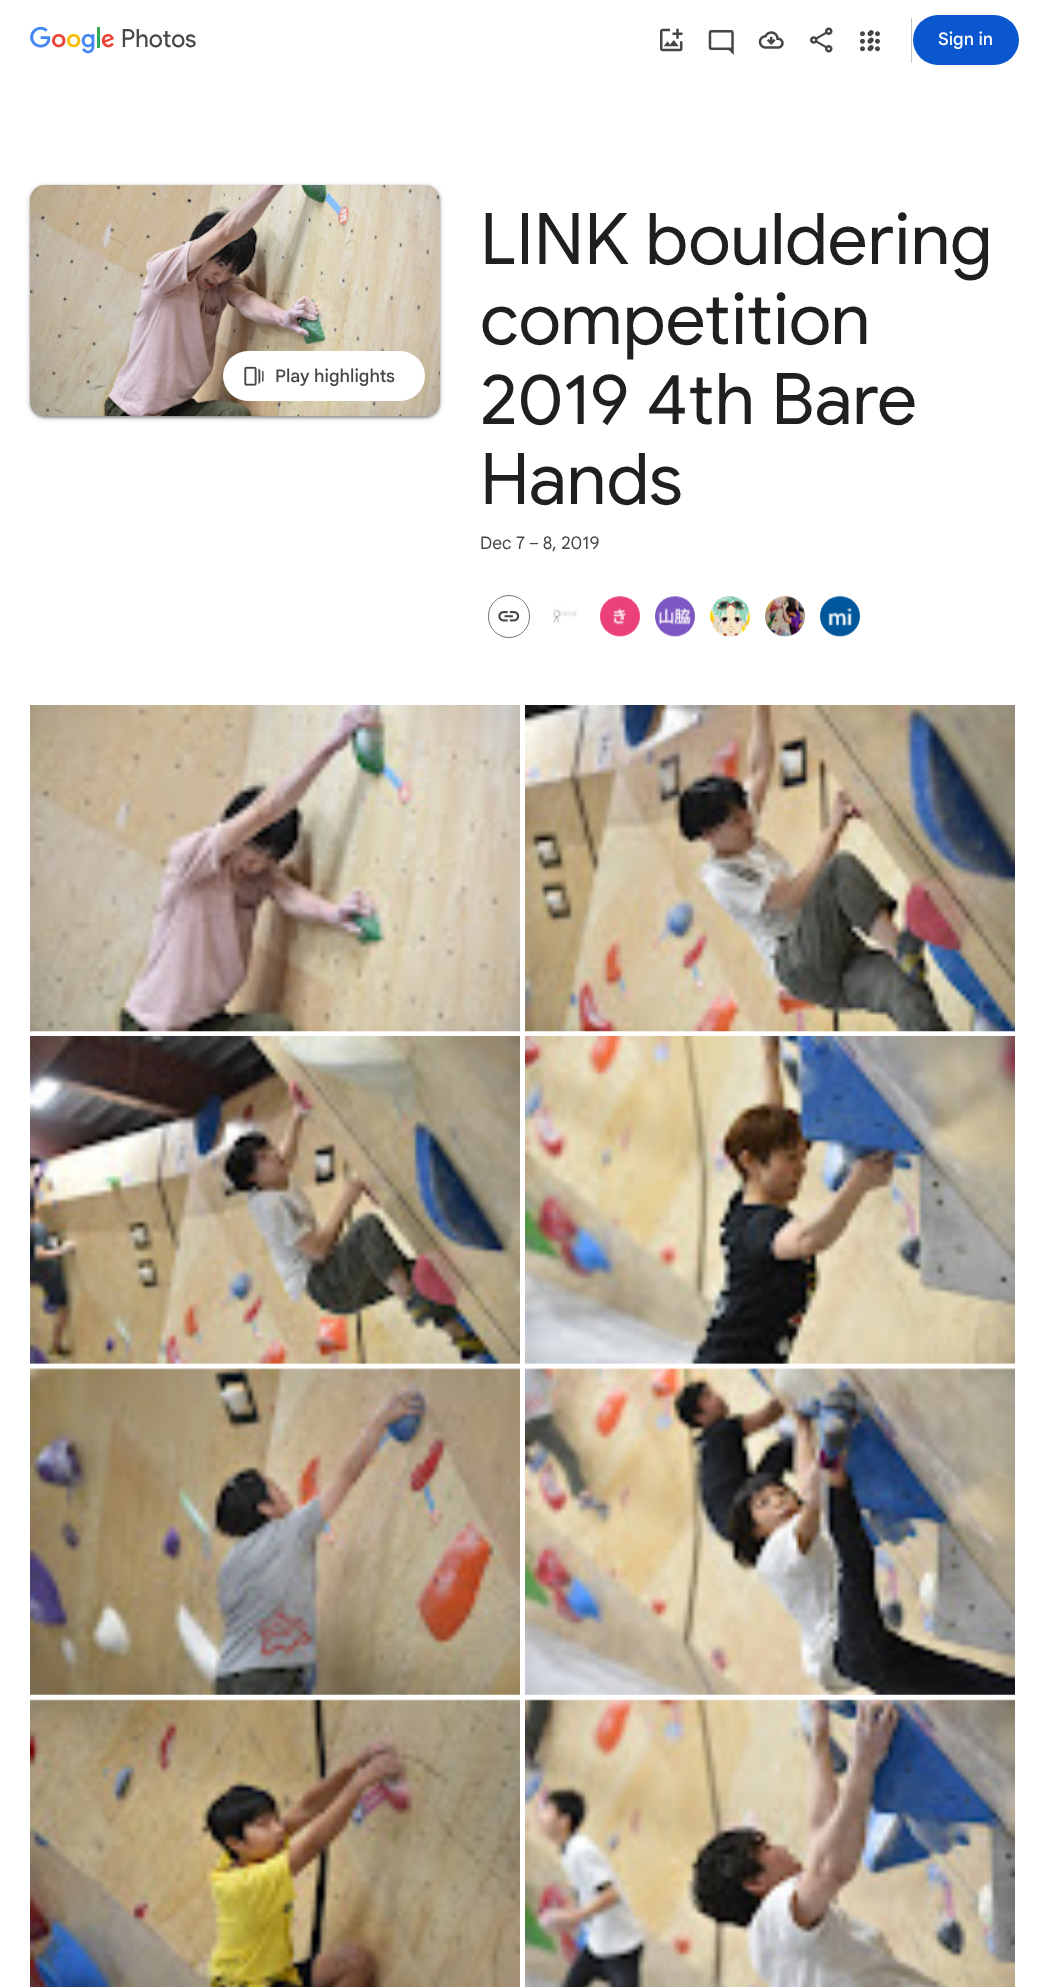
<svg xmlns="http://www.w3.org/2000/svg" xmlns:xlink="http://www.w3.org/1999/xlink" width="1063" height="1987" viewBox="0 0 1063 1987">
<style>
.cls-1{font:25px Product Sans;fill:#444746}
.cls-2{font:500 17.5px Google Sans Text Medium;fill:#444746}
.cls-3{font:71.25px Google Sans;fill:#1f1f1f}
.cls-4{font:17.5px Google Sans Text;fill:#444746}
.cls-5{font:500 17.5px Google Sans Text Medium;fill:#ffffff}
</style>
<rect width="100%" height="100%" fill="#ffffff"/>
<image xlink:href="image0.png" x="30" y="26" width="84" height="28"/>
<image xlink:href="image1.png" x="660" y="28" width="23" height="24"/>
<image xlink:href="image2.png" x="708" y="30" width="26" height="25"/>
<image xlink:href="image3.png" x="758" y="31" width="26" height="18"/>
<image xlink:href="image4.png" x="810" y="27" width="23" height="26"/>
<image xlink:href="image5.png" x="868" y="30" width="6" height="20"/>
<rect fill="#c4c7c5" x="911" y="18" width="1" height="45"/>
<rect fill="#000000" fill-opacity="0.15" filter="blur(2px)" x="29" y="185" width="412" height="234" rx="16"/>
<rect fill="#000000" fill-opacity="0.3" filter="blur(1px)" x="30" y="186" width="410" height="232" rx="15"/>
<image xlink:href="image6.png" x="30" y="185" width="410" height="232"/>
<rect fill="#ffffff" x="223" y="351" width="202" height="50" rx="25"/>
<image xlink:href="image7.png" x="244" y="366" width="20" height="20"/>
<rect fill="none" stroke="#747775" x="488.5" y="595.5" width="41" height="42" rx="20.5"/>
<image xlink:href="image8.png" x="498" y="611" width="22" height="11"/>
<image xlink:href="image9.png" x="553" y="607" width="24" height="17"/>
<image xlink:href="image10.png" x="600" y="596" width="40" height="41"/>
<image xlink:href="image11.png" x="655" y="596" width="40" height="41"/>
<image xlink:href="image12.png" x="710" y="596" width="40" height="41"/>
<image xlink:href="image13.png" x="765" y="596" width="40" height="41"/>
<image xlink:href="image14.png" x="820" y="596" width="40" height="41"/>
<image xlink:href="image15.png" x="30" y="705" width="490" height="327"/>
<image xlink:href="image16.png" x="525" y="705" width="490" height="327"/>
<image xlink:href="image17.png" x="30" y="1036" width="490" height="328"/>
<image xlink:href="image18.png" x="525" y="1036" width="490" height="328"/>
<image xlink:href="image19.png" x="30" y="1368" width="490" height="327"/>
<image xlink:href="image20.png" x="525" y="1368" width="490" height="327"/>
<image xlink:href="image21.png" x="30" y="1699" width="490" height="288"/>
<image xlink:href="image22.png" x="525" y="1699" width="490" height="288"/>
<image xlink:href="image23.png" x="860" y="31" width="20" height="21"/>
<rect fill="#0b57d0" x="913" y="15" width="106" height="50" rx="25"/>
<text class="cls-1" x="121" y="47">Photos</text>
<text class="cls-2" x="275" y="382">Play highlights</text>
<text class="cls-3"><tspan x="480" y="264">LINK bouldering</tspan><tspan x="480" y="344">competition</tspan><tspan x="480" y="424">2019 4th Bare</tspan><tspan x="480" y="504">Hands</tspan></text>
<text class="cls-4" x="480" y="549">Dec 7 – 8, 2019</text>
<text class="cls-5" x="938" y="45">Sign in</text>
</svg>
